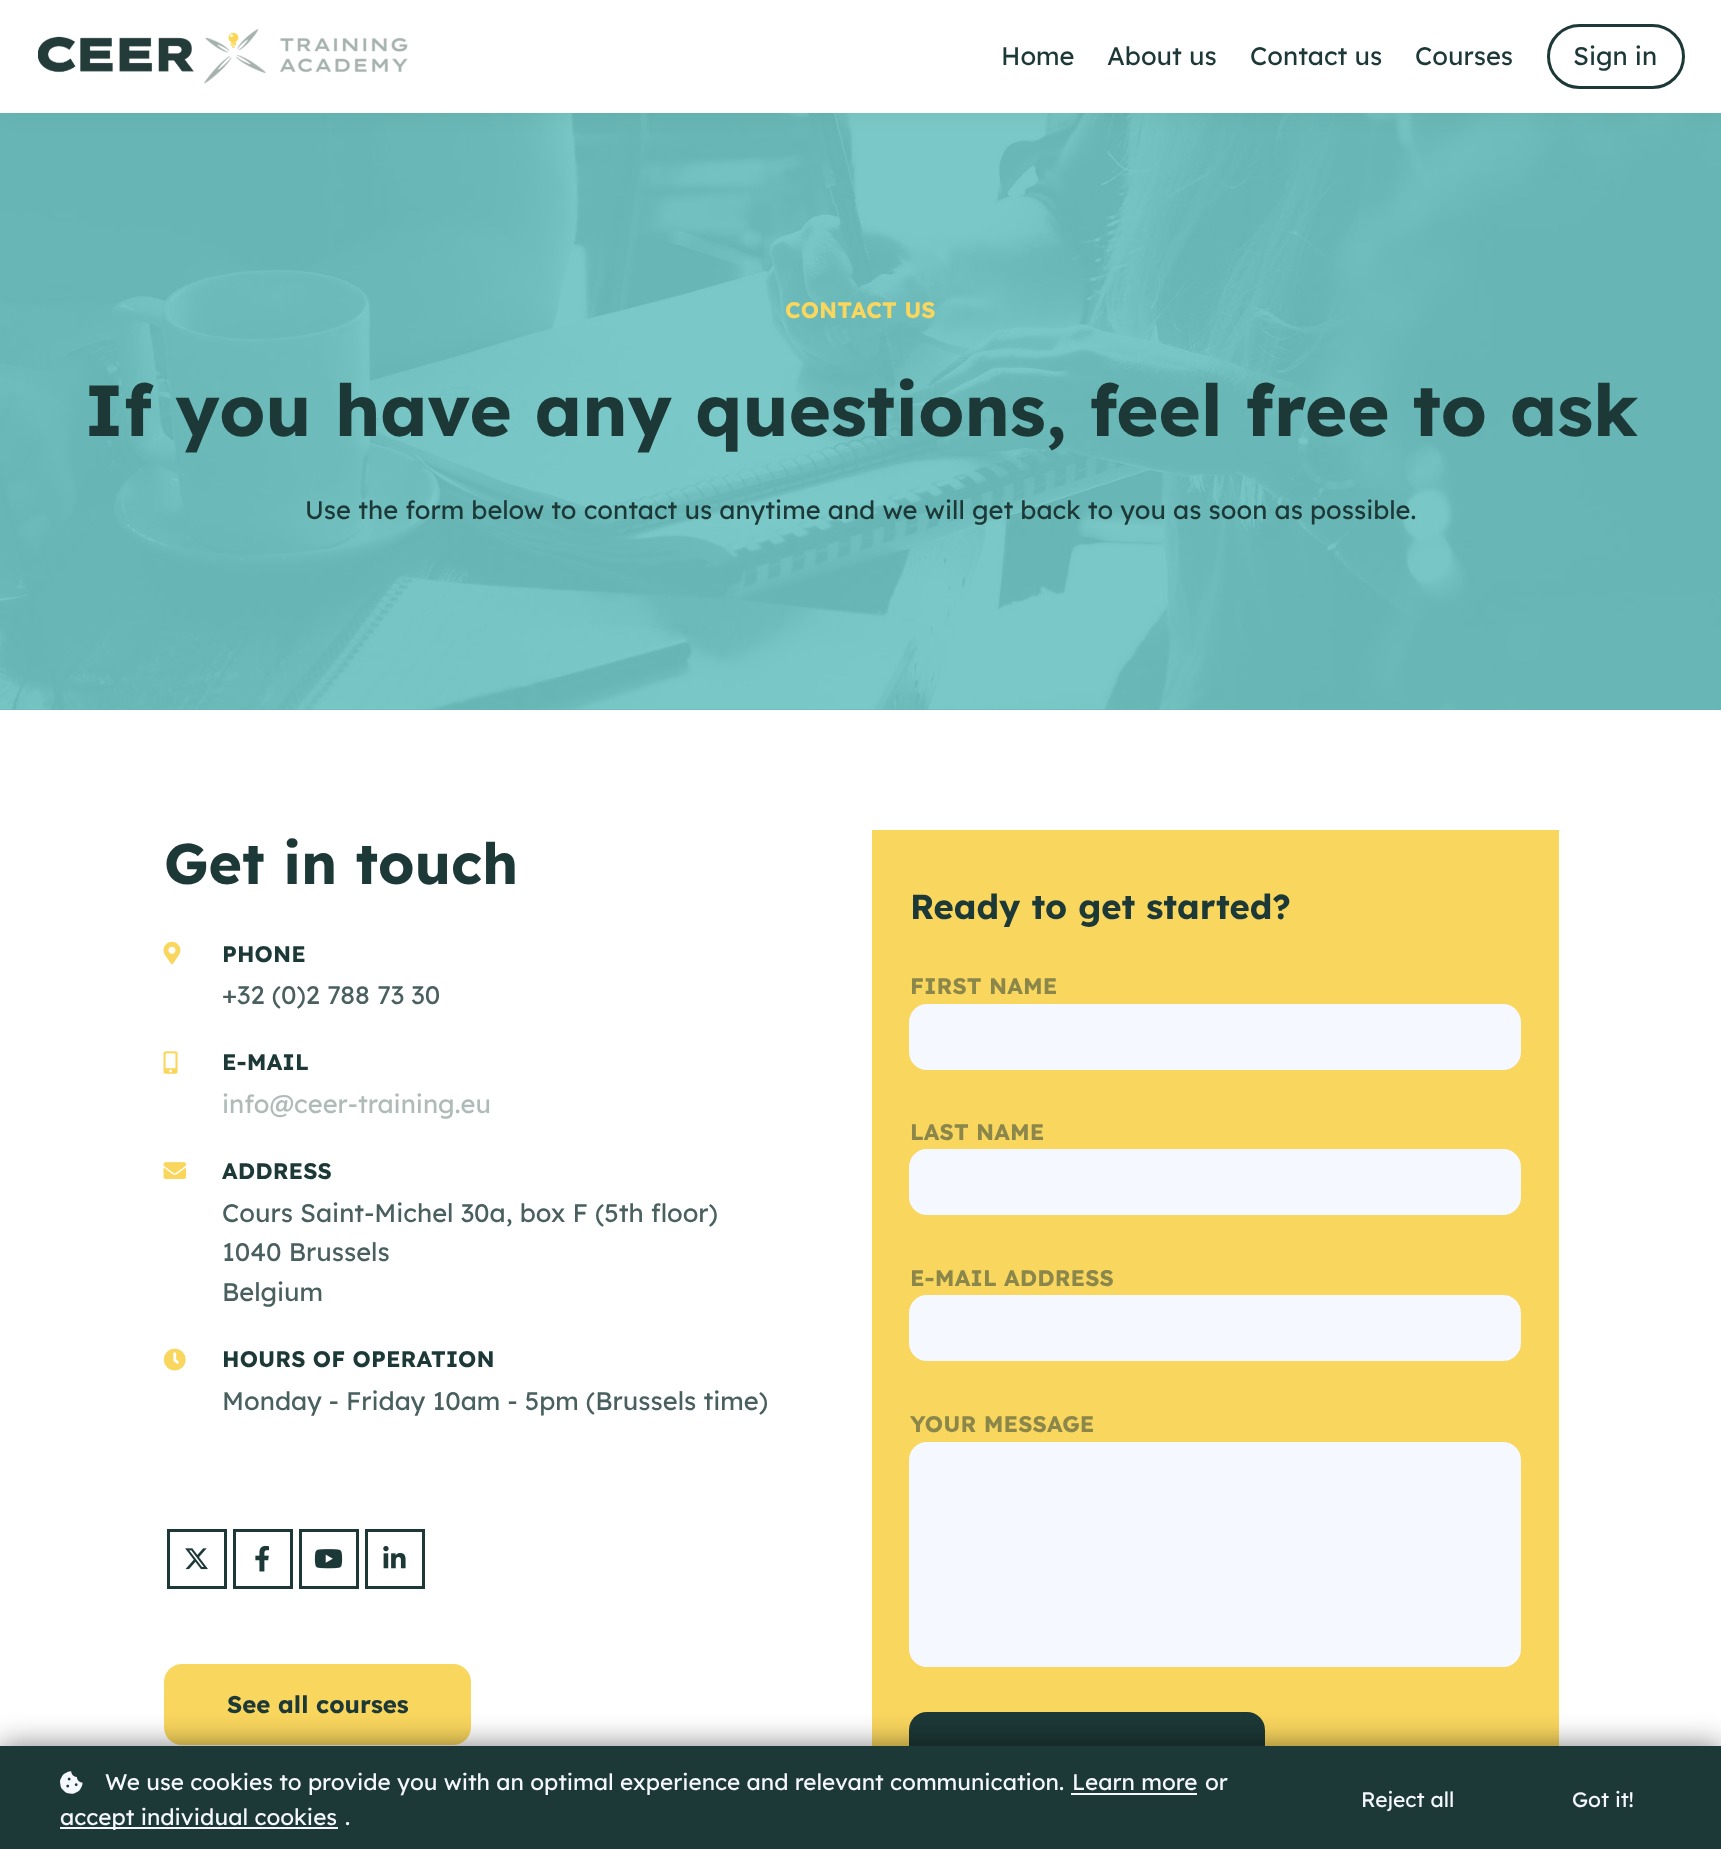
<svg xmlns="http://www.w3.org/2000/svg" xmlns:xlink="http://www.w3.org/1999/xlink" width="1721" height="1849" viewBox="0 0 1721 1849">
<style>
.cls-1{font:25.5px Lexend Deca;fill:#1c3837}
.cls-2{font:bold 22.5px Lexend Deca;letter-spacing:0.1px;fill:#f9d65e}
.cls-3{font:bold 72px Lexend Deca;fill:#1c3837}
.cls-4{font:bold 57px Lexend Deca;fill:#1c3837}
.cls-5{font:bold 22.5px Lexend Deca;letter-spacing:0.1px;fill:#1c3837}
.cls-6{font:25.5px Lexend Deca;fill:#49605f}
.cls-7{font:25.5px Lexend Deca;fill:#aebbb8}
.cls-8{font:bold 24px Lexend Deca;fill:#1c3837}
.cls-9{font:bold 34.5px Lexend Deca;fill:#1c3837}
.cls-10{font:bold 22.5px Lexend Deca;letter-spacing:0.1px;fill:#8b874b}
.cls-11{font:22.5px Lexend Deca;fill:#f6f8ff}
.cls-12{font:21px Lexend Deca;fill:#f6f8ff}
</style>
<rect width="100%" height="100%" fill="#ffffff"/>
<rect fill="#66b6b5" x="0" y="709" width="1721" height="1"/>
<image xlink:href="image1.png" x="0" y="113" width="1721" height="597"/>
<rect fill="#000000" fill-opacity="0.05" filter="blur(11px)" x="0" y="0" width="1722" height="113"/>
<rect fill="#ffffff" x="0" y="0" width="1721" height="113"/>
<image xlink:href="image0.png" x="38" y="29" width="370" height="55"/>
<rect fill="none" stroke="#1c3837" stroke-width="3" x="1548.5" y="25.5" width="135" height="62" rx="31"/>
<image xlink:href="image2.png" x="163" y="941" width="18" height="24"/>
<image xlink:href="image3.png" x="163" y="1051" width="15" height="23"/>
<image xlink:href="image4.png" x="163" y="1162" width="23" height="17"/>
<image xlink:href="image5.png" x="163" y="1348" width="23" height="23"/>
<rect fill="none" stroke="#1c3837" stroke-width="3" x="168.5" y="1530.5" width="57" height="57"/>
<image xlink:href="image6.png" x="185" y="1548" width="23" height="22"/>
<rect fill="none" stroke="#1c3837" stroke-width="3" x="234.5" y="1530.5" width="57" height="57"/>
<image xlink:href="image7.png" x="255" y="1545" width="15" height="27"/>
<rect fill="none" stroke="#1c3837" stroke-width="3" x="300.5" y="1530.5" width="57" height="57"/>
<image xlink:href="image8.png" x="314" y="1549" width="29" height="20"/>
<rect fill="none" stroke="#1c3837" stroke-width="3" x="366.5" y="1530.5" width="57" height="57"/>
<image xlink:href="image9.png" x="383" y="1545" width="23" height="24"/>
<rect fill="#f9d65e" x="164" y="1664" width="307" height="81" rx="18"/>
<rect fill="#f9d65e" x="872" y="830" width="687" height="916"/>
<rect fill="#f6f8ff" stroke="#f6f8ff" stroke-width="3" x="910.5" y="1005.5" width="609" height="63" rx="16.5"/>
<rect fill="#f6f8ff" stroke="#f6f8ff" stroke-width="3" x="910.5" y="1150.5" width="609" height="63" rx="16.5"/>
<rect fill="#f6f8ff" stroke="#f6f8ff" stroke-width="3" x="910.5" y="1296.5" width="609" height="63" rx="16.5"/>
<rect fill="#f6f8ff" stroke="#f6f8ff" stroke-width="3" x="910.5" y="1443.5" width="609" height="222" rx="16.5"/>
<rect fill="#1c3837" x="909" y="1712" width="356" height="81" rx="18"/>
<rect fill="#000000" fill-opacity="0.5" filter="blur(15px)" x="0" y="1746" width="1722" height="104"/>
<rect fill="#1c3837" x="0" y="1746" width="1721" height="103"/>
<image xlink:href="image10.png" x="60" y="1771" width="23" height="23"/>
<rect fill="#f6f8ff" x="1071" y="1793" width="126" height="2"/>
<rect fill="#f6f8ff" x="60" y="1827" width="278" height="2"/>
<text class="cls-1" x="1001" y="65">Home</text>
<text class="cls-1" x="1107" y="65">About us</text>
<text class="cls-1" x="1250" y="65">Contact us</text>
<text class="cls-1" x="1415" y="65">Courses</text>
<text class="cls-1" x="1573" y="65">Sign in</text>
<text class="cls-2" x="785" y="318">CONTACT US</text>
<text class="cls-3" x="84" y="436">If you have any questions, feel free to ask</text>
<text class="cls-1" x="305" y="519">Use the form below to contact us anytime and we will get back to you as soon as possible.</text>
<text class="cls-4" x="164" y="884">Get in touch</text>
<text class="cls-5" x="222" y="962">PHONE</text>
<text class="cls-6" x="222" y="1004">+32 (0)2 788 73 30</text>
<text class="cls-5" x="222" y="1070">E-MAIL</text>
<text class="cls-7" x="222" y="1113">info@ceer-training.eu</text>
<text class="cls-5" x="222" y="1179">ADDRESS</text>
<text class="cls-6"><tspan x="222" y="1222">Cours Saint-Michel 30a, box F (5th floor)</tspan><tspan x="222" y="1261">1040 Brussels</tspan><tspan x="222" y="1301">Belgium</tspan></text>
<text class="cls-5" x="222" y="1367">HOURS OF OPERATION</text>
<text class="cls-6" x="222" y="1410">Monday - Friday 10am - 5pm (Brussels time)</text>
<text class="cls-8" x="227" y="1713">See all courses</text>
<text class="cls-9" x="910" y="919">Ready to get started?</text>
<text class="cls-10" x="910" y="994">FIRST NAME</text>
<text class="cls-10" x="910" y="1140">LAST NAME</text>
<text class="cls-10" x="910" y="1286">E-MAIL ADDRESS</text>
<text class="cls-10" x="910" y="1432">YOUR MESSAGE</text>
<text class="cls-11" x="105" y="1790">We use cookies to provide you with an optimal experience and relevant communication.</text>
<text class="cls-11" x="1072" y="1790">Learn more</text>
<text class="cls-11" x="1205" y="1790">or</text>
<text class="cls-11" x="60" y="1825">accept individual cookies</text>
<text class="cls-11" x="345" y="1825">.</text>
<text class="cls-12" x="1361" y="1807">Reject all</text>
<text class="cls-12" x="1572" y="1807">Got it!</text>
</svg>
